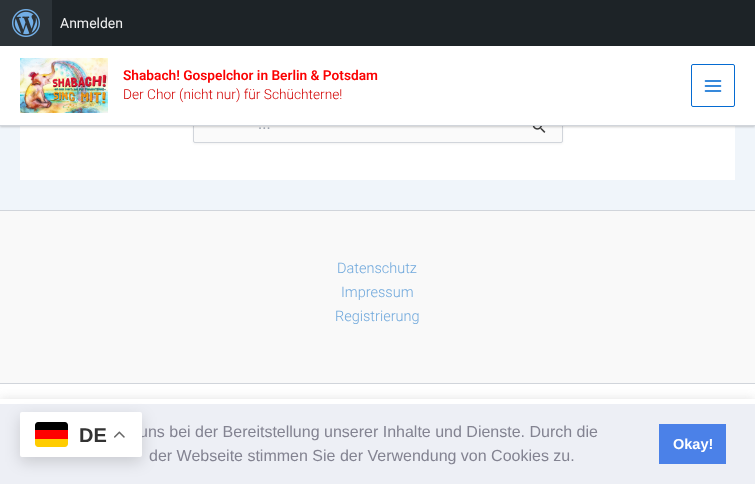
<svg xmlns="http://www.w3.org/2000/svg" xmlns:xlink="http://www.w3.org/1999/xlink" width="755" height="484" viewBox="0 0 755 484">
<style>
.cls-1{font:14px Roboto;fill:#f0f0f1}
.cls-2{font:600 13.7px Roboto;fill:#fb0202}
.cls-3{font:300 13.7px Roboto;fill:#d10000}
.cls-4{font:16px Roboto;fill:#9ca3af}
.cls-5{font:300 14.5px Roboto;fill:#6fa8dc}
.cls-6{font:16px Liberation Sans;fill:#838391}
.cls-7{font:bold 20px Liberation Sans;fill:#333333}
.cls-8{font:bold 14.5px Liberation Sans;fill:#ffffff}
</style>
<rect width="100%" height="100%" fill="#f0f5fa"/>
<rect fill="#ffffff" x="20" y="126" width="715" height="54"/>
<rect fill="#000000" fill-opacity="0.05" filter="blur(1px)" x="193" y="104" width="370" height="40" rx="2"/>
<rect fill="#fafafa" stroke="#d1d5db" x="193.5" y="103.5" width="369" height="39" rx="1.5"/>
<image xlink:href="image3.png" x="532" y="126" width="14" height="7"/>
<rect fill="#000000" fill-opacity="0.2" filter="blur(1px)" x="0" y="47" width="755" height="80"/>
<rect fill="#1d2327" x="52" y="0" width="703" height="46"/>
<rect fill="#2c3338" x="0" y="0" width="52" height="46"/>
<image xlink:href="image0.png" x="12" y="9" width="28" height="28"/>
<rect fill="#ffffff" x="0" y="46" width="755" height="79"/>
<rect fill="#d1d5db" x="0" y="125" width="755" height="1"/>
<image xlink:href="image1.png" x="20" y="58" width="88" height="55"/>
<rect fill="none" stroke="#046bd2" x="691.5" y="64.5" width="43" height="42" rx="1.5"/>
<image xlink:href="image2.png" x="704" y="80" width="18" height="12"/>
<rect fill="#f9f9f9" x="0" y="211" width="755" height="172"/>
<rect fill="#d1d5db" x="0" y="210" width="755" height="1"/>
<rect fill="#ffffff" x="0" y="384" width="755" height="15"/>
<rect fill="#d1d5db" x="0" y="383" width="755" height="1"/>
<rect fill="#acabab" fill-opacity="0.3" filter="blur(5px)" x="0" y="398" width="755" height="85"/>
<rect fill="#ffffff" x="0" y="399" width="755" height="5"/>
<rect fill="#edeff5" x="0" y="404" width="755" height="80"/>
<rect fill="#000000" fill-opacity="0.15" filter="blur(7.5px)" x="20" y="417" width="122" height="45" rx="2"/>
<rect fill="#4b81e8" x="659" y="424" width="67" height="40"/>
<text class="cls-1" x="60" y="28">Anmelden</text>
<text class="cls-2" x="123" y="80">Shabach! Gospelchor in Berlin &amp; Potsdam</text>
<text class="cls-3" x="123" y="99">Der Chor (nicht nur) für Schüchterne!</text>
<text class="cls-4" x="258" y="129">...</text>
<text class="cls-5" x="337" y="273">Datenschutz</text>
<text class="cls-5" x="341" y="297">Impressum</text>
<text class="cls-5" x="335" y="321">Registrierung</text>
<text class="cls-6" x="139" y="437">uns bei der Bereitstellung unserer Inhalte und Dienste. Durch die</text>
<rect fill="#ffffff" x="20" y="412" width="122" height="45" rx="2"/>
<image xlink:href="image4.png" x="114" y="431" width="11" height="7"/>
<text class="cls-7" x="79" y="442">DE</text>
<rect fill="#ff0000" x="35" y="430" width="33" height="9"/>
<path fill="#000000" d="M38 422H65C66.5 422 68 423.5 68 425V430H35V425C35 423.5 36.5 422 38 422Z"/>
<path fill="#ffcc00" d="M35 439H68V444C68 445.5 66.5 447 65 447H38C36.5 447 35 445.5 35 444Z"/>
<text class="cls-6" x="149" y="461">der Webseite stimmen Sie der Verwendung von Cookies zu.</text>
<text class="cls-8" x="673" y="449">Okay!</text>
</svg>
